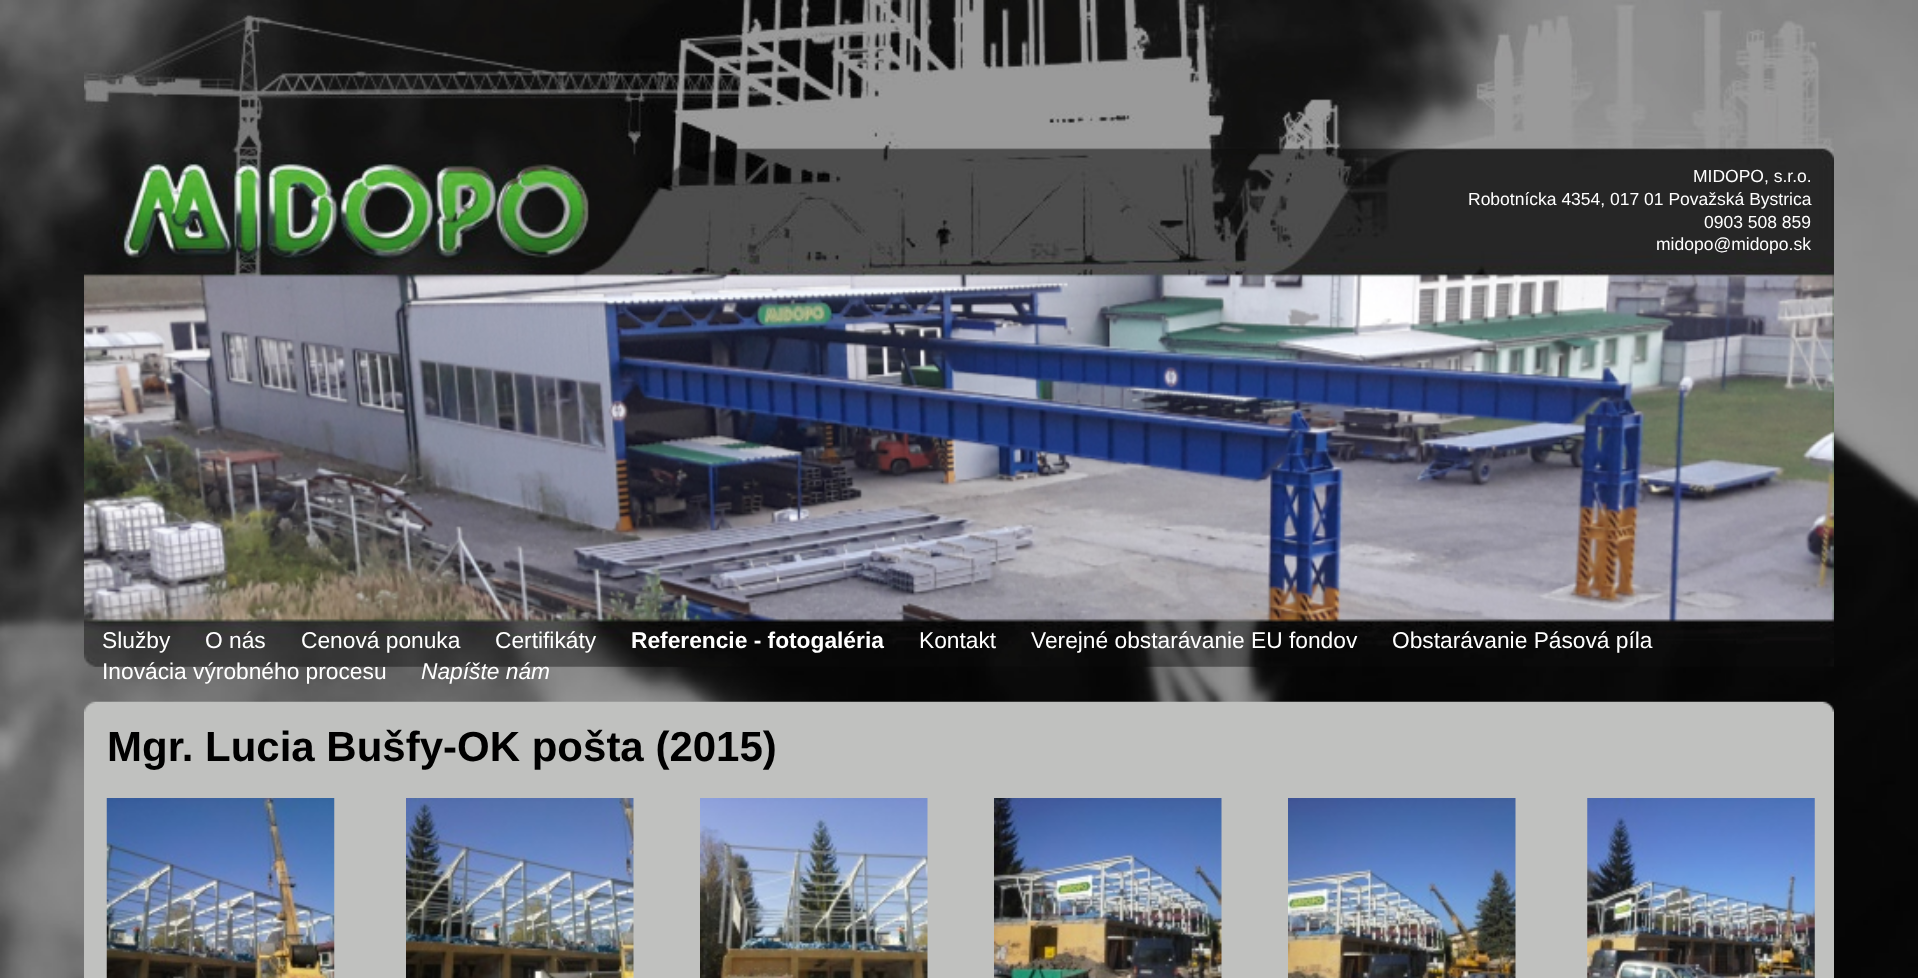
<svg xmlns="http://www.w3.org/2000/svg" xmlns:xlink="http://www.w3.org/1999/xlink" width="1918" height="978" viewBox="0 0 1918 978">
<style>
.cls-1{font:17.5px Liberation Sans;fill:#ffffff}
.cls-2{font:22.75px Liberation Sans;fill:#ffffff}
.cls-3{font:bold 22.75px Liberation Sans;fill:#ffffff}
.cls-4{font:italic 22.75px Liberation Sans;fill:#ffffff}
.cls-5{font:bold 42px Liberation Sans;fill:#000000}
</style>
<rect width="100%" height="100%" fill="#ffffff"/>
<image xlink:href="image0.png" x="0" y="0" width="1918" height="978"/>
<image xlink:href="image1.png" x="84" y="0" width="1750" height="667"/>
<image xlink:href="image2.png" x="84" y="701" width="1750" height="11"/>
<rect fill="#c0c1bf" x="84" y="712" width="1750" height="266"/>
<image xlink:href="image3.png" x="106" y="798" width="229" height="180"/>
<image xlink:href="image4.png" x="406" y="798" width="228" height="180"/>
<image xlink:href="image5.png" x="700" y="798" width="228" height="180"/>
<image xlink:href="image6.png" x="994" y="798" width="228" height="180"/>
<image xlink:href="image7.png" x="1288" y="798" width="228" height="180"/>
<image xlink:href="image8.png" x="1587" y="798" width="228" height="180"/>
<text class="cls-1" x="1693" y="182">MIDOPO, s.r.o.</text>
<text class="cls-1" x="1468" y="205">Robotnícka 4354, 017 01 Považská Bystrica</text>
<text class="cls-1" x="1704" y="228">0903 508 859</text>
<text class="cls-1" x="1656" y="250">midopo@midopo.sk</text>
<text class="cls-2" x="102" y="648">Služby</text>
<text class="cls-2" x="205" y="648">O nás</text>
<text class="cls-2" x="301" y="648">Cenová ponuka</text>
<text class="cls-2" x="495" y="648">Certifikáty</text>
<text class="cls-3" x="631" y="648">Referencie - fotogaléria</text>
<text class="cls-2" x="919" y="648">Kontakt</text>
<text class="cls-2" x="1031" y="648">Verejné obstarávanie EU fondov</text>
<text class="cls-2" x="1392" y="648">Obstarávanie Pásová píla</text>
<text class="cls-2" x="102" y="679">Inovácia výrobného procesu</text>
<text class="cls-4" x="421" y="679">Napíšte nám</text>
<text class="cls-5" x="107" y="761">Mgr. Lucia Bušfy-OK pošta (2015)</text>
</svg>
